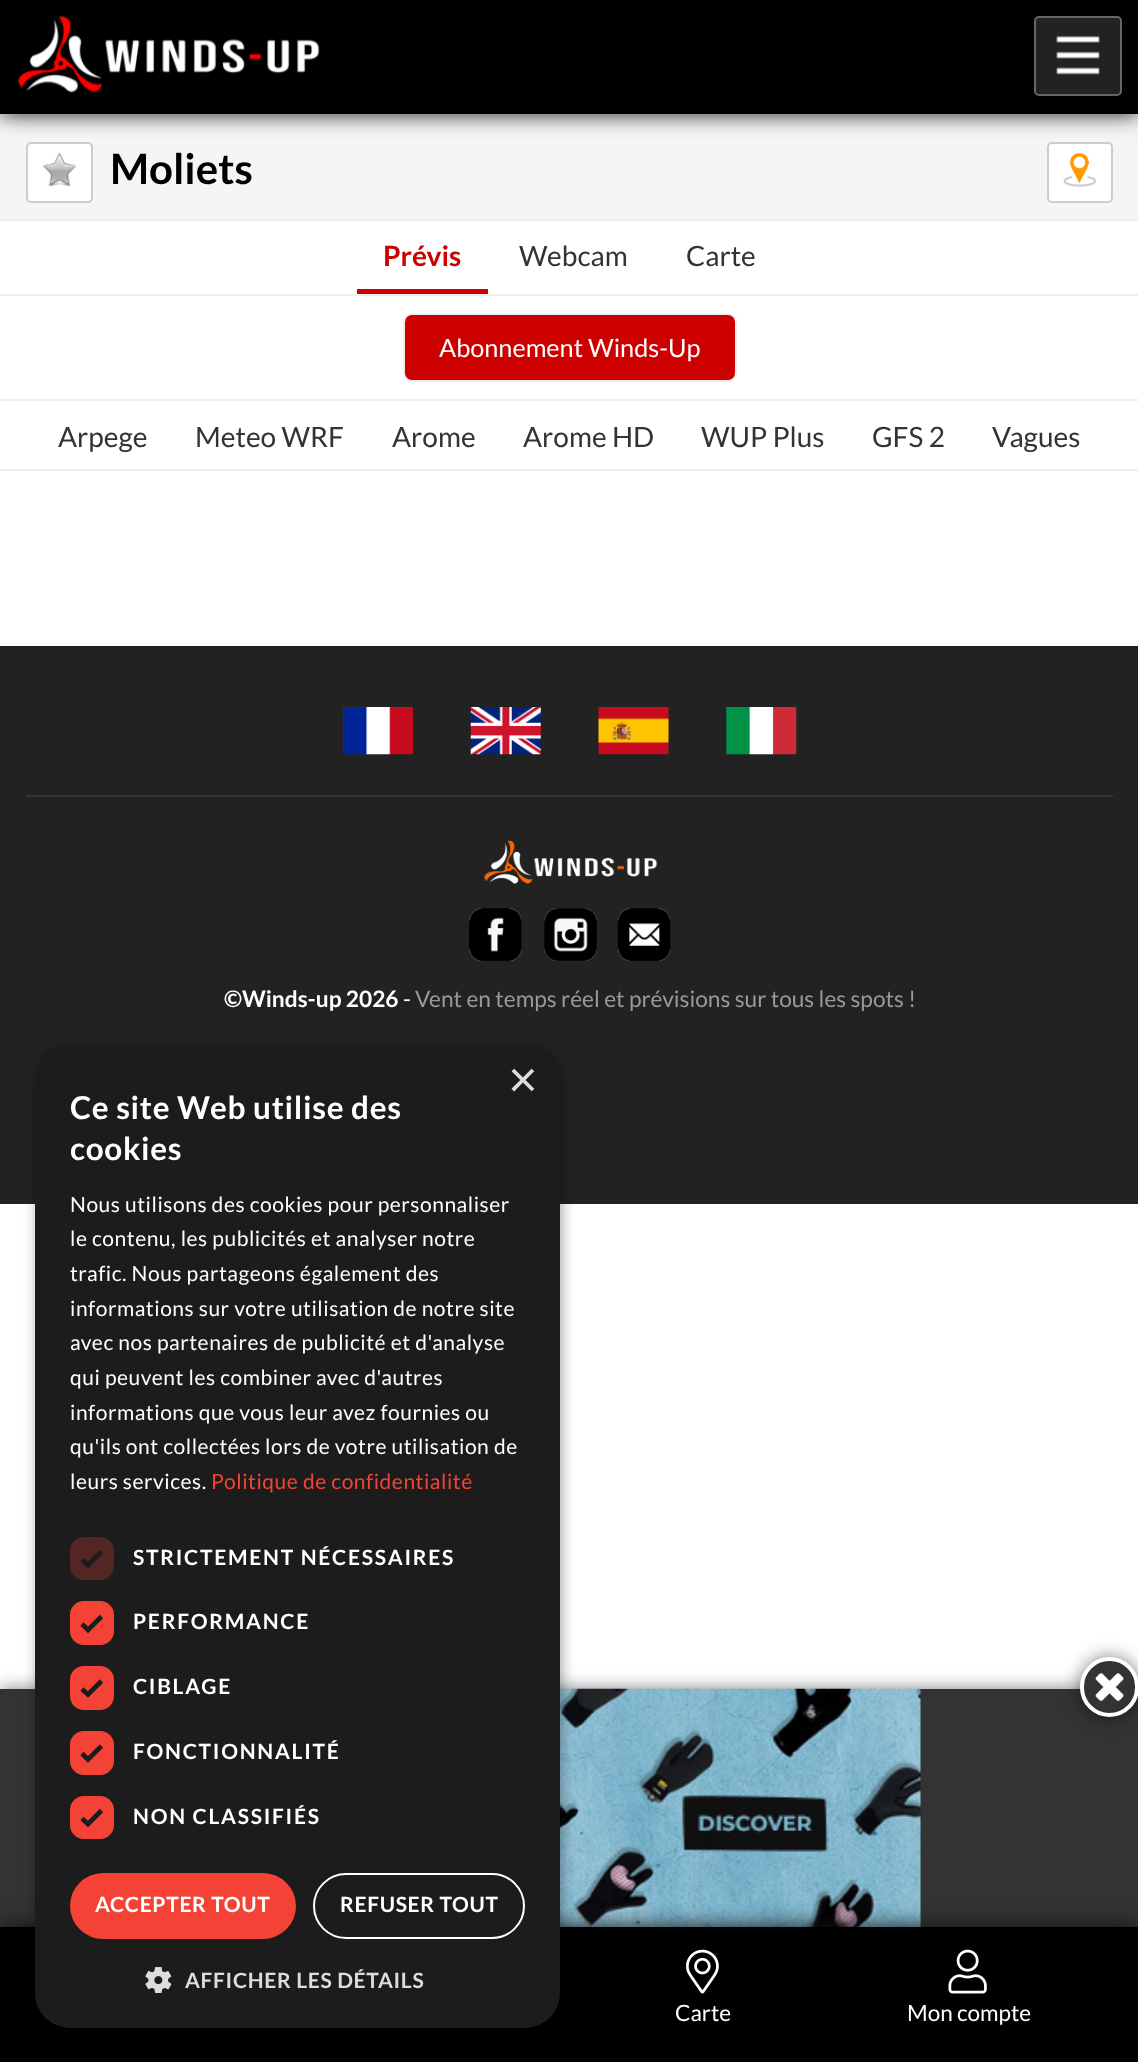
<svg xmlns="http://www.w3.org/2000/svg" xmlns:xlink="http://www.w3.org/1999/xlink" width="1138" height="2062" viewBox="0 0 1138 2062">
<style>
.cls-1{font:bold 42px Lato;fill:#000000}
.cls-2{font:bold 28px Lato;fill:#cc0000}
.cls-3{font:28px Lato;fill:#333333}
.cls-4{font:25.25px Lato;fill:#ffffff}
.cls-5{font:bold 22.7px Lato;fill:#ffffff}
.cls-6{font:22.7px Lato;fill:#ffffff}
.cls-7{font:22.7px Lato;fill:#999999}
.cls-8{font:22.5px Lato;fill:#ffffff}
.cls-9{font:51px Liberation Sans;fill:#dddddd}
.cls-10{font:bold 31.5px Lato;letter-spacing:0.7px;fill:#ffffff}
.cls-11{font:21px Lato;letter-spacing:0.53px;fill:#ffffff}
.cls-12{font:21px Lato;letter-spacing:0.53px;fill:#f44336}
.cls-13{font:bold 21px Lato;letter-spacing:1.75px;fill:#ffffff}
.cls-14{font:bold 21px Lato;letter-spacing:0.7px;fill:#ffffff}
.cls-15{font:bold 21px Lato;letter-spacing:0.7px;fill:#dddddd}
</style>
<rect width="100%" height="100%" fill="#ffffff"/>
<rect fill="#f5f5f5" x="0" y="116" width="1138" height="103"/>
<rect fill="#ffffff" stroke="#cccccc" stroke-width="2" x="27" y="143" width="65" height="59" rx="4"/>
<rect fill="#ffffff" stroke="#cccccc" stroke-width="2" x="1048" y="143" width="64" height="59" rx="4"/>
<rect fill="#111111" filter="blur(10.5px)" x="0" y="-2" width="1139" height="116"/>
<rect fill="#000000" x="0" y="0" width="1138" height="114"/>
<image xlink:href="image0.png" x="18" y="16" width="302" height="77"/>
<rect fill="#222222" stroke="#666666" stroke-width="2" x="1035" y="17" width="86" height="78" rx="4"/>
<image xlink:href="image1.png" x="1056" y="35" width="44" height="40"/>
<image xlink:href="image2.png" x="43" y="153" width="33" height="34"/>
<image xlink:href="image3.png" x="1063" y="153" width="33" height="34"/>
<rect fill="#eeeeee" x="0" y="219" width="1138" height="2"/>
<rect fill="#eeeeee" x="0" y="294" width="1138" height="2"/>
<rect fill="#cc0000" x="357" y="289" width="131" height="5"/>
<rect fill="#cc0000" stroke="#eeeeee" stroke-width="2" x="404" y="314" width="332" height="67" rx="8"/>
<rect fill="#eeeeee" x="0" y="399" width="1138" height="2"/>
<rect fill="#eeeeee" x="0" y="469" width="1138" height="2"/>
<rect fill="#222222" x="0" y="646" width="1138" height="558"/>
<rect fill="#333333" x="26" y="795" width="1087" height="2"/>
<image xlink:href="image4.png" x="343" y="707" width="70" height="48"/>
<image xlink:href="image5.png" x="470" y="707" width="71" height="48"/>
<image xlink:href="image6.png" x="598" y="707" width="71" height="48"/>
<image xlink:href="image7.png" x="726" y="707" width="71" height="48"/>
<image xlink:href="image8.png" x="484" y="840" width="174" height="44"/>
<image xlink:href="image9.png" x="469" y="908" width="53" height="53"/>
<image xlink:href="image10.png" x="544" y="908" width="53" height="53"/>
<image xlink:href="image11.png" x="617" y="908" width="54" height="53"/>
<rect fill="#000000" fill-opacity="0.5" filter="blur(9px)" x="0" y="1689" width="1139" height="262"/>
<rect fill="#333333" x="0" y="1689" width="1138" height="238"/>
<image xlink:href="image12.png" x="560" y="1688" width="361" height="239"/>
<rect fill="#000000" fill-opacity="0.5" filter="blur(9px)" x="1080" y="1657" width="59" height="60" rx="29.5"/>
<rect fill="#333333" stroke="#ffffff" stroke-width="4" x="1082" y="1659" width="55" height="56" rx="27.5"/>
<image xlink:href="image13.png" x="1095" y="1673" width="29" height="28"/>
<rect fill="#111111" filter="blur(10.5px)" x="0" y="1927" width="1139" height="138"/>
<rect fill="#000000" x="0" y="1927" width="1138" height="135"/>
<image xlink:href="image14.png" x="686" y="1949" width="33" height="45"/>
<image xlink:href="image15.png" x="948" y="1949" width="39" height="45"/>
<rect fill="#000000" fill-opacity="0.35" filter="blur(7px)" x="37" y="1048" width="525" height="984" rx="35"/>
<rect fill="#1c1c1c" x="35" y="1045" width="525" height="983" rx="35"/>
<rect fill="#542623" x="70" y="1537" width="44" height="43" rx="14"/>
<path fill="none" stroke="#1c1c1c" stroke-width="4.6" d="M82 1559.5L88 1565L101.5 1551.5"/>
<rect fill="#f44336" stroke="#f44336" stroke-width="4" x="72" y="1603" width="40" height="40" rx="12"/>
<path fill="none" stroke="#1c1c1c" stroke-width="4.6" d="M82 1624L88 1630L101.5 1616.5"/>
<rect fill="#f44336" stroke="#f44336" stroke-width="4" x="72" y="1668" width="40" height="40" rx="12"/>
<path fill="none" stroke="#1c1c1c" stroke-width="4.6" d="M82 1689L88 1694.5L101.5 1681"/>
<rect fill="#f44336" stroke="#f44336" stroke-width="4" x="72" y="1733" width="40" height="40" rx="12"/>
<path fill="none" stroke="#1c1c1c" stroke-width="4.6" d="M82 1753.5L88 1759.5L101.5 1746"/>
<rect fill="#f44336" stroke="#f44336" stroke-width="4" x="72" y="1798" width="40" height="39" rx="12"/>
<path fill="none" stroke="#1c1c1c" stroke-width="4.6" d="M82 1818.5L88 1824L101.5 1810.5"/>
<rect fill="#f44336" x="70" y="1873" width="226" height="66" rx="33"/>
<rect fill="none" stroke="#ffffff" stroke-width="2" x="314" y="1874" width="210" height="64" rx="32"/>
<image xlink:href="image16.png" x="145" y="1967" width="27" height="26"/>
<text class="cls-1" x="110" y="184">Moliets</text>
<text class="cls-2" x="383" y="266">Prévis</text>
<text class="cls-3" x="519" y="266">Webcam</text>
<text class="cls-3" x="686" y="266">Carte</text>
<text class="cls-4" x="439" y="357">Abonnement Winds-Up</text>
<text class="cls-3" x="58" y="447">Arpege</text>
<text class="cls-3" x="195" y="447">Meteo WRF</text>
<text class="cls-3" x="392" y="447">Arome</text>
<text class="cls-3" x="523" y="447">Arome HD</text>
<text class="cls-3" x="701" y="447">WUP Plus</text>
<text class="cls-3" x="872" y="447">GFS 2</text>
<text class="cls-3" x="992" y="447">Vagues</text>
<text class="cls-5" x="224" y="1007">©Winds-up 2026</text>
<text class="cls-6" x="403" y="1007">-</text>
<text class="cls-7" x="415" y="1007">Vent en temps réel et prévisions sur tous les spots !</text>
<text class="cls-8" x="675" y="2021">Carte</text>
<text class="cls-8" x="907" y="2021">Mon compte</text>
<text class="cls-9" x="508" y="1097">×</text>
<text class="cls-10"><tspan x="70" y="1119">Ce site Web utilise des</tspan><tspan x="70" y="1160">cookies</tspan></text>
<text class="cls-11"><tspan x="70" y="1212">Nous utilisons des cookies pour personnaliser</tspan><tspan x="70" y="1246">le contenu, les publicités et analyser notre</tspan><tspan x="70" y="1281">trafic. Nous partageons également des</tspan><tspan x="70" y="1316">informations sur votre utilisation de notre site</tspan><tspan x="70" y="1350">avec nos partenaires de publicité et d'analyse</tspan><tspan x="70" y="1385">qui peuvent les combiner avec d'autres</tspan><tspan x="70" y="1420">informations que vous leur avez fournies ou</tspan><tspan x="70" y="1454">qu'ils ont collectées lors de votre utilisation de</tspan><tspan x="70" y="1489">leurs services.</tspan></text>
<text class="cls-12" x="211" y="1489">Politique de confidentialité</text>
<text class="cls-13" x="133" y="1565">STRICTEMENT NÉCESSAIRES</text>
<text class="cls-13" x="133" y="1629">PERFORMANCE</text>
<text class="cls-13" x="133" y="1694">CIBLAGE</text>
<text class="cls-13" x="133" y="1759">FONCTIONNALITÉ</text>
<text class="cls-13" x="133" y="1824">NON CLASSIFIÉS</text>
<text class="cls-14" x="95" y="1912">ACCEPTER TOUT</text>
<text class="cls-14" x="340" y="1912">REFUSER TOUT</text>
<text class="cls-15" x="185" y="1988">AFFICHER LES DÉTAILS</text>
</svg>
